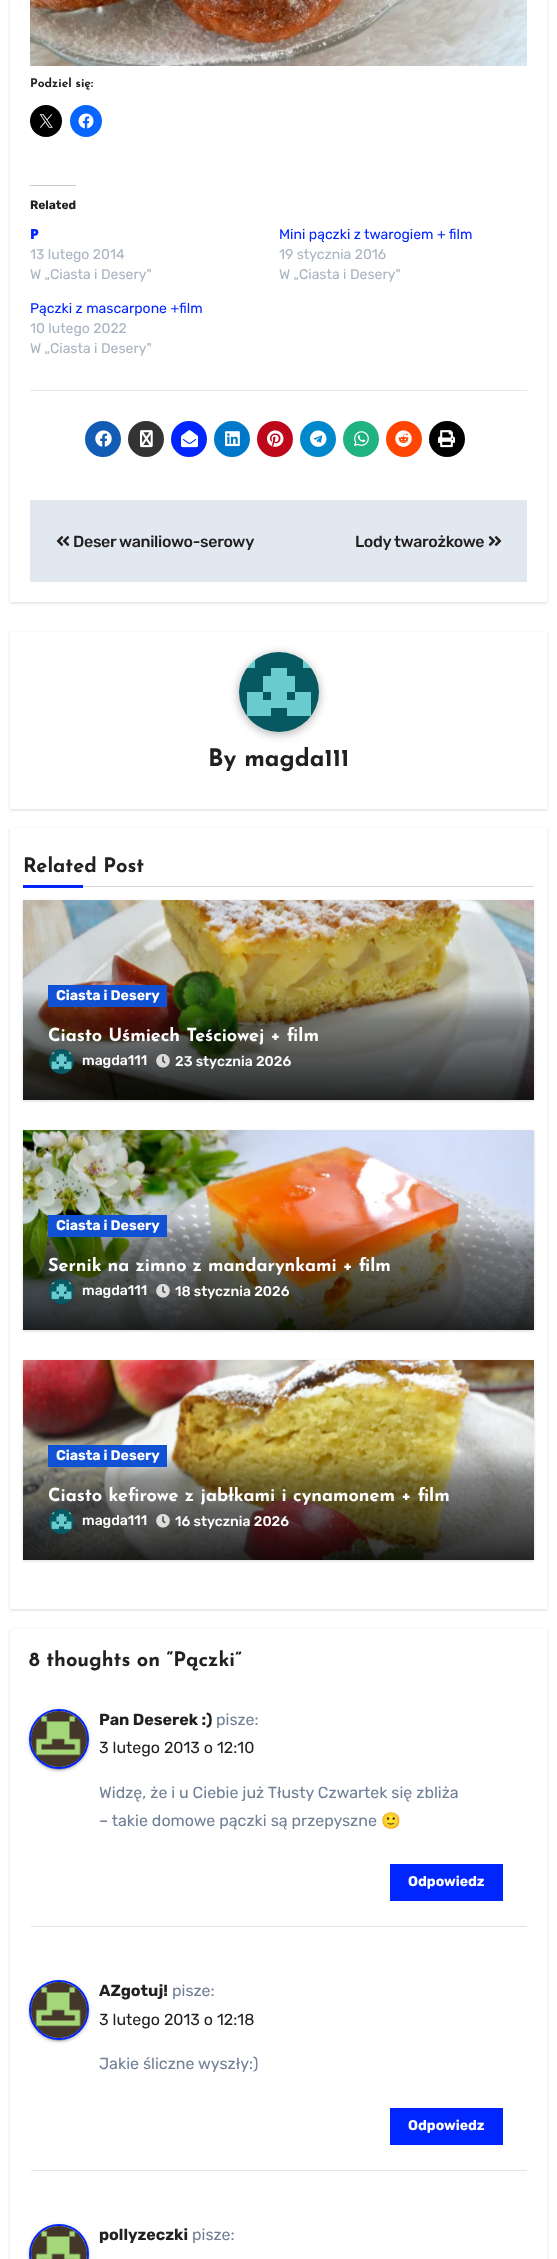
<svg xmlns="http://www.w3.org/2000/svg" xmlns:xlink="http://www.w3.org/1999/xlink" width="557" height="2259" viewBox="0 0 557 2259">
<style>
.cls-1{font:bold 12px Josefin Sans;fill:#212121}
.cls-2{font:bold 12px Rubik;fill:#212121}
.cls-3{font:900 14px Noto Sans;fill:#0025ff}
.cls-4{font:300 14px Rubik;fill:#aab3c0}
.cls-5{font:300 14px Rubik;fill:#0025ff}
.cls-6{font:500 16px Rubik;letter-spacing:-0.3px;fill:#212121}
.cls-7{font:bold 24px Josefin Sans;fill:#212121}
.cls-8{font:bold 20px Josefin Sans;fill:#212121}
.cls-9{font:bold 14px Rubik;fill:#ffffff}
.cls-10{font:bold 18px Josefin Sans;fill:#ffffff}
.cls-11{font:500 14px Rubik;fill:#ffffff}
.cls-12{font:bold 16px Rubik;fill:#212121}
.cls-13{font:300 16px Rubik;fill:#718096}
.cls-14{font:300 16px Rubik;fill:#212121}
.cls-15{font:16px Noto Color Emoji;fill:#718096}
</style>
<defs>
<clipPath id="clip1"><path d="M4 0H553V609H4ZM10-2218H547V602H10Z" clip-rule="evenodd"/></clipPath>
<clipPath id="clip2"><path d="M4 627H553V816H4ZM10 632H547V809H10Z" clip-rule="evenodd"/></clipPath>
<clipPath id="clip3"><path d="M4 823H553V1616H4ZM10 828H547V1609H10Z" clip-rule="evenodd"/></clipPath>
<clipPath id="clip4"><path d="M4 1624H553V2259H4ZM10 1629H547V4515H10Z" clip-rule="evenodd"/></clipPath>
<clipPath id="clip5"><rect x="48" y="1027" width="461" height="22"/></clipPath>
<clipPath id="clip6"><rect x="48" y="1257" width="461" height="22"/></clipPath>
<clipPath id="clip7"><rect x="48" y="1487" width="461" height="22"/></clipPath>
</defs>
<rect width="100%" height="100%" fill="#ffffff"/>
<g clip-path="url(#clip1)">
<rect fill="#000000" fill-opacity="0.15" filter="blur(1.5px)" x="10" y="-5" width="537" height="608"/>
</g>
<image xlink:href="image0.png" x="30" y="0" width="497" height="66"/>
<circle fill="#000000" cx="46" cy="121" r="16"/>
<image xlink:href="image1.png" x="39" y="114" width="14" height="14"/>
<circle fill="#0866ff" cx="86" cy="121" r="16"/>
<image xlink:href="image2.png" x="78" y="113" width="16" height="16"/>
<rect fill="#cccccc" x="30" y="185" width="46" height="1"/>
<rect fill="#e2e8f0" x="30" y="390" width="497" height="1"/>
<circle fill="#135cb6" cx="103" cy="439" r="18"/>
<image xlink:href="image3.png" x="95" y="430" width="17" height="17"/>
<circle fill="#333333" cx="146" cy="439" r="18"/>
<image xlink:href="image4.png" x="140" y="430" width="13" height="18"/>
<circle fill="#0025ff" cx="189" cy="439" r="18"/>
<image xlink:href="image5.png" x="181" y="430" width="17" height="18"/>
<circle fill="#0078ca" cx="232" cy="439" r="18"/>
<image xlink:href="image6.png" x="225" y="431" width="15" height="16"/>
<circle fill="#bd081c" cx="275" cy="439" r="18"/>
<image xlink:href="image7.png" x="267" y="430" width="17" height="17"/>
<circle fill="#0088cc" cx="318" cy="439" r="18"/>
<image xlink:href="image8.png" x="310" y="430" width="17" height="17"/>
<circle fill="#1fb381" cx="361" cy="439" r="18"/>
<image xlink:href="image9.png" x="354" y="431" width="15" height="15"/>
<circle fill="#ff4500" cx="404" cy="439" r="18"/>
<image xlink:href="image10.png" x="395" y="430" width="17" height="17"/>
<circle fill="#000000" cx="447" cy="439" r="18"/>
<image xlink:href="image11.png" x="438" y="430" width="17" height="18"/>
<rect fill="#e2e8f0" x="30" y="500" width="497" height="82"/>
<image xlink:href="image12.png" x="56" y="536" width="14" height="10"/>
<image xlink:href="image13.png" x="488" y="536" width="14" height="10"/>
<g clip-path="url(#clip2)">
<rect fill="#000000" fill-opacity="0.15" filter="blur(1.5px)" x="10" y="633" width="537" height="177"/>
</g>
<rect fill="#212121" fill-opacity="0.3" filter="blur(4px)" x="238" y="653" width="82" height="82" rx="41"/>
<image xlink:href="image14.png" x="239" y="652" width="80" height="80"/>
<g clip-path="url(#clip3)">
<rect fill="#000000" fill-opacity="0.15" filter="blur(1.5px)" x="10" y="829" width="537" height="781"/>
</g>
<rect fill="#d7d7d7" x="83" y="886" width="451" height="1"/>
<rect fill="#0025ff" x="23" y="885" width="60" height="3"/>
<rect fill="#000000" fill-opacity="0.15" filter="blur(1.5px)" x="23" y="901" width="511" height="200"/>
<image xlink:href="image15.png" x="23" y="900" width="511" height="200"/>
<rect fill="#1151d3" x="48" y="985" width="119" height="22"/>
<image xlink:href="image16.png" x="49" y="1049" width="25" height="25"/>
<image xlink:href="image17.png" x="156" y="1054" width="14" height="14"/>
<rect fill="#000000" fill-opacity="0.15" filter="blur(1.5px)" x="23" y="1131" width="511" height="200"/>
<image xlink:href="image18.png" x="23" y="1130" width="511" height="200"/>
<rect fill="#1151d3" x="48" y="1215" width="119" height="22"/>
<rect fill="#212121" fill-opacity="0.3" filter="blur(4px)" x="48" y="1280" width="27" height="27" rx="13.5"/>
<image xlink:href="image19.png" x="49" y="1279" width="25" height="25"/>
<image xlink:href="image20.png" x="156" y="1284" width="14" height="14"/>
<rect fill="#000000" fill-opacity="0.15" filter="blur(1.5px)" x="23" y="1361" width="511" height="200"/>
<image xlink:href="image21.png" x="23" y="1360" width="511" height="200"/>
<rect fill="#1151d3" x="48" y="1445" width="119" height="22"/>
<image xlink:href="image22.png" x="49" y="1509" width="25" height="25"/>
<image xlink:href="image23.png" x="156" y="1514" width="14" height="14"/>
<g clip-path="url(#clip4)">
<rect fill="#000000" fill-opacity="0.15" filter="blur(1.5px)" x="10" y="1630" width="537" height="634"/>
</g>
<rect fill="#e4e4e4" x="31" y="1926" width="496" height="1"/>
<rect fill="#000000" fill-opacity="0.12" filter="blur(2.5px)" x="29" y="1710" width="60" height="60" rx="30"/>
<rect fill="#000000" fill-opacity="0.2" filter="blur(0.5px)" x="31" y="1714" width="56" height="56" rx="28"/>
<rect fill="#000000" fill-opacity="0.14" filter="blur(1px)" x="29" y="1711" width="60" height="60" rx="30"/>
<circle fill="none" stroke="#0025ff" stroke-width="2" cx="59" cy="1739" r="29"/>
<image xlink:href="image24.png" x="31" y="1711" width="56" height="56"/>
<rect fill="#0025ff" x="390" y="1864" width="113" height="37"/>
<rect fill="#e4e4e4" x="31" y="2170" width="496" height="1"/>
<rect fill="#000000" fill-opacity="0.12" filter="blur(2.5px)" x="29" y="1981" width="60" height="60" rx="30"/>
<rect fill="#000000" fill-opacity="0.2" filter="blur(0.5px)" x="31" y="1985" width="56" height="56" rx="28"/>
<rect fill="#000000" fill-opacity="0.14" filter="blur(1px)" x="29" y="1982" width="60" height="60" rx="30"/>
<circle fill="none" stroke="#0025ff" stroke-width="2" cx="59" cy="2010" r="29"/>
<image xlink:href="image24.png" x="31" y="1982" width="56" height="56"/>
<rect fill="#0025ff" x="390" y="2108" width="113" height="37"/>
<rect fill="#000000" fill-opacity="0.12" filter="blur(2.5px)" x="29" y="2225" width="60" height="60" rx="30"/>
<rect fill="#000000" fill-opacity="0.14" filter="blur(1px)" x="29" y="2226" width="60" height="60" rx="30"/>
<circle fill="none" stroke="#0025ff" stroke-width="2" cx="59" cy="2254" r="29"/>
<image xlink:href="image25.png" x="31" y="2226" width="56" height="33"/>
<text class="cls-1" x="30" y="87">Podziel się:</text>
<text class="cls-2" x="30" y="209">Related</text>
<text class="cls-3" x="30" y="239">P</text>
<text class="cls-4"><tspan x="30" y="259">13 lutego 2014</tspan><tspan x="30" y="279">W „Ciasta i Desery"</tspan></text>
<text class="cls-5" x="279" y="239">Mini pączki z twarogiem + film</text>
<text class="cls-4"><tspan x="279" y="259">19 stycznia 2016</tspan><tspan x="279" y="279">W „Ciasta i Desery"</tspan></text>
<text class="cls-5" x="30" y="313">Pączki z mascarpone +film</text>
<text class="cls-4"><tspan x="30" y="333">10 lutego 2022</tspan><tspan x="30" y="353">W „Ciasta i Desery"</tspan></text>
<text class="cls-6" x="73" y="547">Deser waniliowo-serowy</text>
<text class="cls-6" x="355" y="547">Lody twarożkowe</text>
<text class="cls-7" x="208" y="766">By magda111</text>
<text class="cls-8" x="23" y="872">Related Post</text>
<text class="cls-9" x="56" y="1000">Ciasta i Desery</text>
<g clip-path="url(#clip5)">
<text class="cls-10" x="48" y="1041" word-spacing="0.5">Ciasto Uśmiech Teściowej + film</text>
</g>
<text class="cls-11" x="82" y="1065">magda111</text>
<text class="cls-11" x="175" y="1066">23 stycznia 2026</text>
<text class="cls-9" x="56" y="1230">Ciasta i Desery</text>
<g clip-path="url(#clip6)">
<text class="cls-10" x="48" y="1271" word-spacing="0.25">Sernik na zimno z mandarynkami + film</text>
</g>
<text class="cls-11" x="82" y="1295">magda111</text>
<text class="cls-11" x="175" y="1296">18 stycznia 2026</text>
<text class="cls-9" x="56" y="1460">Ciasta i Desery</text>
<g clip-path="url(#clip7)">
<text class="cls-10" x="48" y="1501" word-spacing="0.5">Ciasto kefirowe z jabłkami i cynamonem + film</text>
</g>
<text class="cls-11" x="82" y="1525">magda111</text>
<text class="cls-11" x="175" y="1526">16 stycznia 2026</text>
<text class="cls-8" x="29" y="1666">8 thoughts on “Pączki”</text>
<text class="cls-12" x="99" y="1725">Pan Deserek :)</text>
<text class="cls-13" x="216" y="1725">pisze:</text>
<text class="cls-14" x="99" y="1753">3 lutego 2013 o 12:10</text>
<text class="cls-13"><tspan x="99" y="1798">Widzę, że i u Ciebie już Tłusty Czwartek się zbliża</tspan><tspan x="99" y="1826">– takie domowe pączki są przepyszne</tspan></text>
<text class="cls-15" x="381" y="1826">🙂</text>
<text class="cls-9" x="408" y="1886">Odpowiedz</text>
<text class="cls-12" x="99" y="1996">AZgotuj!</text>
<text class="cls-13" x="172" y="1996">pisze:</text>
<text class="cls-14" x="99" y="2025">3 lutego 2013 o 12:18</text>
<text class="cls-13" x="99" y="2069">Jakie śliczne wyszły:)</text>
<text class="cls-9" x="408" y="2130">Odpowiedz</text>
<text class="cls-12" x="99" y="2240">pollyzeczki</text>
<text class="cls-13" x="192" y="2240">pisze:</text>
</svg>
